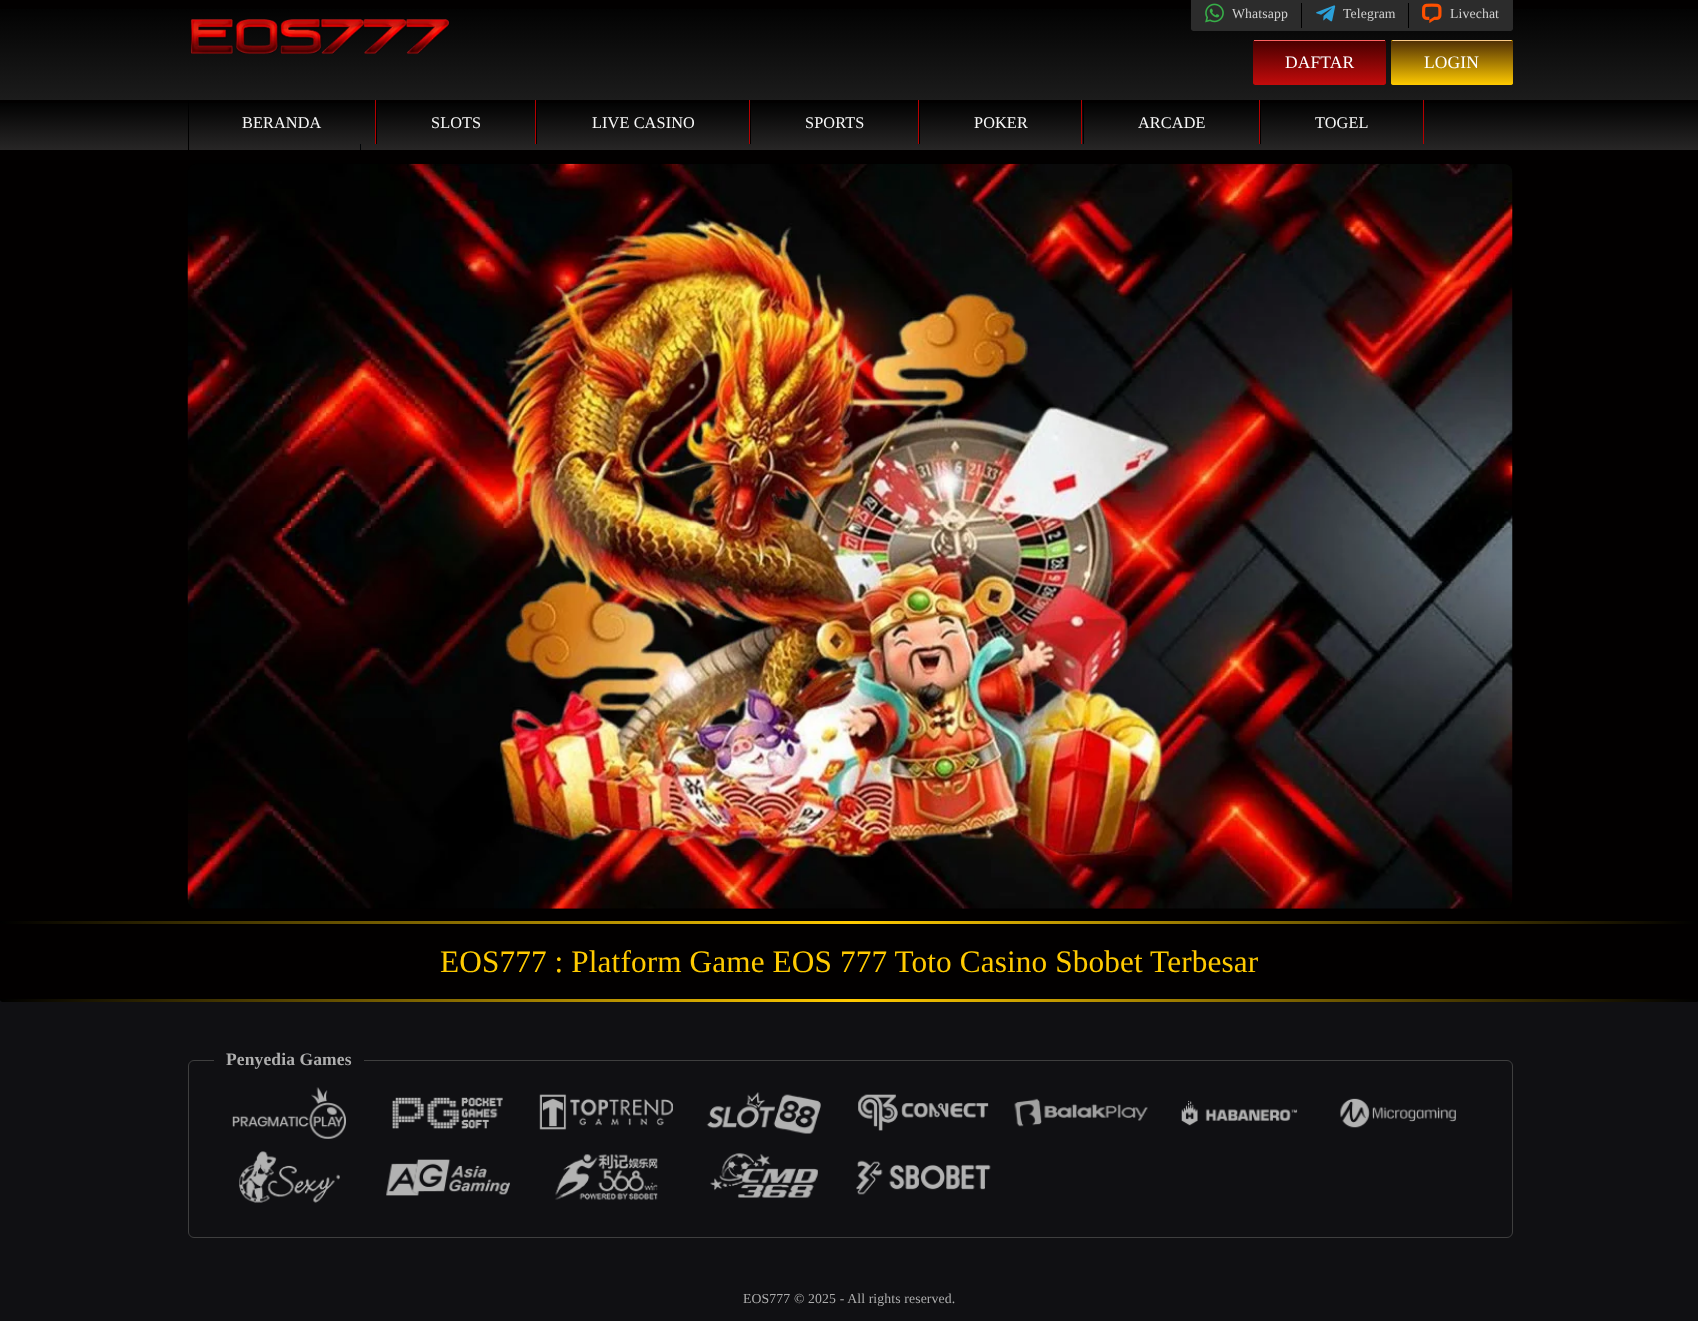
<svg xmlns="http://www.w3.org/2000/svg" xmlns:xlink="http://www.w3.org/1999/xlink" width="1698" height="1321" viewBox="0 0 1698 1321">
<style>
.cls-1{font:13.75px Liberation Serif;letter-spacing:0.12px;fill:#d1d1d1}
.cls-2{font:17.5px Liberation Serif;letter-spacing:0.12px;fill:#ffffff}
.cls-3{font:16.25px Liberation Serif;letter-spacing:0.12px;fill:#f8f8f8}
.cls-4{font:31.25px Liberation Serif;letter-spacing:0.12px;fill:#ffca00}
.cls-5{font:bold 17.5px Liberation Serif;letter-spacing:0.12px;fill:#aeaeae}
.cls-6{font:13.75px Liberation Serif;letter-spacing:0.12px;fill:#aeaeae}
</style>
<defs>
<linearGradient id="g1" gradientUnits="userSpaceOnUse" x1="849" y1="150" x2="849" y2="0"><stop offset="0" stop-color="#000000"/><stop offset="0.16" stop-color="#232323"/><stop offset="1" stop-color="#000000"/></linearGradient>
<clipPath id="clip1"><rect x="1253" y="40" width="133" height="45" rx="2.5"/></clipPath>
<linearGradient id="g2" gradientUnits="userSpaceOnUse" x1="1319" y1="41" x2="1319" y2="85"><stop offset="0" stop-color="#490000"/><stop offset="1" stop-color="#c40b0b"/></linearGradient>
<clipPath id="clip2"><rect x="1391" y="40" width="122" height="45" rx="2.5"/></clipPath>
<linearGradient id="g3" gradientUnits="userSpaceOnUse" x1="1452" y1="-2.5" x2="1452" y2="41"><stop offset="0" stop-color="#513005"/><stop offset="1" stop-color="#ffca00"/></linearGradient>
<linearGradient id="g4" gradientUnits="userSpaceOnUse" x1="1452" y1="41" x2="1452" y2="85"><stop offset="0" stop-color="#513005"/><stop offset="1" stop-color="#ffca00"/></linearGradient>
<linearGradient id="g5" gradientUnits="userSpaceOnUse" x1="849" y1="100" x2="849" y2="188"><stop offset="0" stop-color="#000000"/><stop offset="0.85" stop-color="#3b3939"/></linearGradient>
<linearGradient id="g6" gradientUnits="userSpaceOnUse" x1="0" y1="923" x2="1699" y2="923"><stop offset="0" stop-color="#000000"/><stop offset="0.5" stop-color="#ffca00"/><stop offset="1" stop-color="#000000"/></linearGradient>
<linearGradient id="g7" gradientUnits="userSpaceOnUse" x1="0" y1="1000" x2="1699" y2="1000"><stop offset="0" stop-color="#000000"/><stop offset="0.5" stop-color="#ffca00"/><stop offset="1" stop-color="#000000"/></linearGradient>
</defs>
<rect width="100%" height="100%" fill="#020000"/>
<rect fill="url(#g1)" x="0" y="9" width="1698" height="91"/>
<image xlink:href="image0.png" x="190" y="19" width="260" height="35"/>
<path fill="#2c2c2c" d="M1191 0H1513V28.5C1513 30 1512 31 1510.5 31H1193.5C1192 31 1191 30 1191 28.5Z"/>
<image xlink:href="image1.png" x="1205" y="3" width="19" height="20"/>
<rect fill="#000000" x="1408" y="3" width="1" height="25"/>
<rect fill="#000000" x="1301" y="3" width="1" height="25"/>
<image xlink:href="image2.png" x="1316" y="5" width="20" height="17"/>
<image xlink:href="image3.png" x="1422" y="3" width="20" height="20"/>
<rect fill="#8e0000" x="1253" y="40" width="133" height="45" rx="2.5"/>
<g clip-path="url(#clip1)">
<path fill="url(#g2)" d="M1253 41H1386V82.5C1386 84 1385 85 1383.5 85H1255.5C1254 85 1253 84 1253 82.5Z"/>
</g>
<rect fill="#ff6262" x="1254" y="40" width="131" height="1"/>
<rect fill="#ffca00" x="1391" y="40" width="122" height="45" rx="2.5"/>
<g clip-path="url(#clip2)">
<rect fill="url(#g3)" x="1391" y="40" width="122" height="1"/>
<path fill="url(#g4)" d="M1391 41H1513V82.5C1513 84 1512 85 1510.5 85H1393.5C1392 85 1391 84 1391 82.5Z"/>
</g>
<rect fill="#fdcb87" x="1393" y="40" width="118" height="1"/>
<rect fill="url(#g5)" x="0" y="103" width="1698" height="47"/>
<rect fill="#b60000" x="375" y="100" width="1" height="44"/>
<rect fill="#000000" x="188" y="100" width="1" height="50"/>
<rect fill="#b60000" x="535" y="100" width="1" height="44"/>
<rect fill="#000000" x="376" y="100" width="1" height="44"/>
<rect fill="#b60000" x="749" y="100" width="1" height="44"/>
<rect fill="#000000" x="536" y="100" width="1" height="44"/>
<rect fill="#b60000" x="918" y="100" width="1" height="44"/>
<rect fill="#000000" x="750" y="100" width="1" height="44"/>
<rect fill="#b60000" x="1081" y="100" width="1" height="44"/>
<rect fill="#000000" x="919" y="100" width="1" height="44"/>
<rect fill="#b60000" x="1259" y="100" width="1" height="44"/>
<rect fill="#000000" x="1083" y="100" width="1" height="44"/>
<rect fill="#b60000" x="1423" y="100" width="1" height="44"/>
<rect fill="#000000" x="1260" y="100" width="1" height="44"/>
<rect fill="#000305" x="360" y="144" width="1" height="6"/>
<image xlink:href="image4.png" x="187" y="163" width="1326" height="746"/>
<rect fill="#101013" x="0" y="999" width="1698" height="322"/>
<path fill="url(#g6)" d="M0 921H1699V921.5C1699 923 1698 924 1696.5 924H2.5C1 924 0 923 0 921.5Z"/>
<path fill="url(#g7)" d="M0 999H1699V999.5C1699 1001 1698 1002 1696.5 1002H2.5C1 1002 0 1001 0 999.5Z"/>
<rect fill="none" stroke="#3f3f3f" x="188.5" y="1060.5" width="1324" height="177" rx="5.5"/>
<rect fill="#101013" x="214" y="1060" width="150" height="1"/>
<image xlink:href="image5.png" x="232" y="1087" width="114" height="52"/>
<image xlink:href="image6.png" x="392" y="1097" width="111" height="32"/>
<image xlink:href="image7.png" x="539" y="1094" width="134" height="36"/>
<image xlink:href="image8.png" x="706" y="1092" width="115" height="42"/>
<image xlink:href="image9.png" x="858" y="1094" width="131" height="37"/>
<image xlink:href="image10.png" x="1014" y="1098" width="134" height="29"/>
<image xlink:href="image11.png" x="1181" y="1100" width="117" height="26"/>
<image xlink:href="image12.png" x="1340" y="1098" width="116" height="30"/>
<image xlink:href="image13.png" x="239" y="1151" width="101" height="52"/>
<image xlink:href="image14.png" x="386" y="1159" width="124" height="37"/>
<image xlink:href="image15.png" x="555" y="1154" width="103" height="46"/>
<image xlink:href="image16.png" x="710" y="1153" width="108" height="45"/>
<image xlink:href="image17.png" x="856" y="1160" width="135" height="35"/>
<text class="cls-1" x="1232" y="18">Whatsapp</text>
<text class="cls-1" x="1343" y="18">Telegram</text>
<text class="cls-1" x="1450" y="18">Livechat</text>
<text class="cls-2" x="1285" y="68">DAFTAR</text>
<text class="cls-2" x="1424" y="68">LOGIN</text>
<text class="cls-3" x="242" y="128">BERANDA</text>
<text class="cls-3" x="431" y="128">SLOTS</text>
<text class="cls-3" x="592" y="128">LIVE CASINO</text>
<text class="cls-3" x="805" y="128">SPORTS</text>
<text class="cls-3" x="974" y="128">POKER</text>
<text class="cls-3" x="1138" y="128">ARCADE</text>
<text class="cls-3" x="1315" y="128">TOGEL</text>
<text class="cls-4" x="440" y="972">EOS777 : Platform Game EOS 777 Toto Casino Sbobet Terbesar</text>
<text class="cls-5" x="226" y="1065">Penyedia Games</text>
<text class="cls-6" x="743" y="1303">EOS777</text>
<text class="cls-6" x="794" y="1303">© 2025 - All rights reserved.</text>
</svg>
